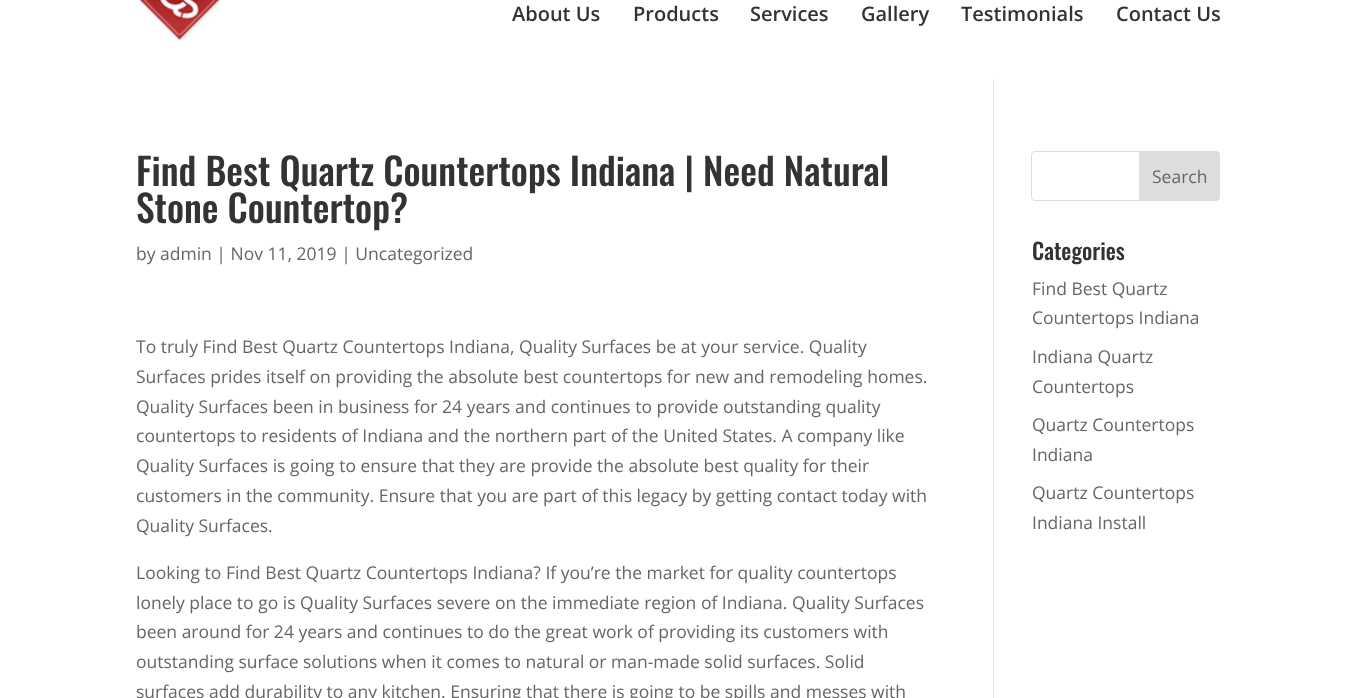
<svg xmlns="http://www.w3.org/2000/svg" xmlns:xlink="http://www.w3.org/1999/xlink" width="1356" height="698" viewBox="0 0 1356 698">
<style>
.cls-1{font:600 20px Open Sans;fill:#333333}
.cls-2{font:500 37.5px Oswald;fill:#333333}
.cls-3{font:17.5px Open Sans;fill:#666666}
.cls-4{font:500 22.5px Oswald;fill:#333333}
</style>
<rect width="100%" height="100%" fill="#ffffff"/>
<image xlink:href="image0.png" x="139" y="0" width="82" height="41"/>
<rect fill="#e2e2e2" x="993" y="79" width="1" height="619"/>
<rect fill="none" stroke="#dddddd" x="1031.5" y="151.5" width="188" height="49" rx="3.5"/>
<path fill="#dddddd" stroke="#dddddd" d="M1139.5 151.5H1216C1218 151.5 1219.5 153 1219.5 155V197C1219.5 199 1218 200.5 1216 200.5H1139.5Z"/>
<text class="cls-1" x="512" y="21">About Us</text>
<text class="cls-1" x="633" y="21">Products</text>
<text class="cls-1" x="750" y="21">Services</text>
<text class="cls-1" x="861" y="21">Gallery</text>
<text class="cls-1" x="961" y="21">Testimonials</text>
<text class="cls-1" x="1116" y="21">Contact Us</text>
<text class="cls-2"><tspan x="136" y="186">Find Best Quartz Countertops Indiana | Need Natural</tspan><tspan x="136" y="223">Stone Countertop?</tspan></text>
<text class="cls-3" x="136" y="260">by admin | Nov 11, 2019 | Uncategorized</text>
<text class="cls-3"><tspan x="136" y="353">To truly Find Best Quartz Countertops Indiana, Quality Surfaces be at your service. Quality</tspan><tspan x="136" y="383">Surfaces prides itself on providing the absolute best countertops for new and remodeling homes.</tspan><tspan x="136" y="413">Quality Surfaces been in business for 24 years and continues to provide outstanding quality</tspan><tspan x="136" y="442">countertops to residents of Indiana and the northern part of the United States. A company like</tspan><tspan x="136" y="472">Quality Surfaces is going to ensure that they are provide the absolute best quality for their</tspan><tspan x="136" y="502">customers in the community. Ensure that you are part of this legacy by getting contact today with</tspan><tspan x="136" y="532">Quality Surfaces.</tspan></text>
<text class="cls-3"><tspan x="136" y="579">Looking to Find Best Quartz Countertops Indiana? If you’re the market for quality countertops</tspan><tspan x="136" y="609">lonely place to go is Quality Surfaces severe on the immediate region of Indiana. Quality Surfaces</tspan><tspan x="136" y="638">been around for 24 years and continues to do the great work of providing its customers with</tspan><tspan x="136" y="668">outstanding surface solutions when it comes to natural or man-made solid surfaces. Solid</tspan><tspan x="136" y="698">surfaces add durability to any kitchen. Ensuring that there is going to be spills and messes with</tspan></text>
<text class="cls-3" x="1152" y="183">Search</text>
<text class="cls-4" x="1032" y="260">Categories</text>
<text class="cls-3"><tspan x="1032" y="295">Find Best Quartz</tspan><tspan x="1032" y="324">Countertops Indiana</tspan></text>
<text class="cls-3"><tspan x="1032" y="363">Indiana Quartz</tspan><tspan x="1032" y="393">Countertops</tspan></text>
<text class="cls-3"><tspan x="1032" y="431">Quartz Countertops</tspan><tspan x="1032" y="461">Indiana</tspan></text>
<text class="cls-3"><tspan x="1032" y="499">Quartz Countertops</tspan><tspan x="1032" y="529">Indiana Install</tspan></text>
</svg>
